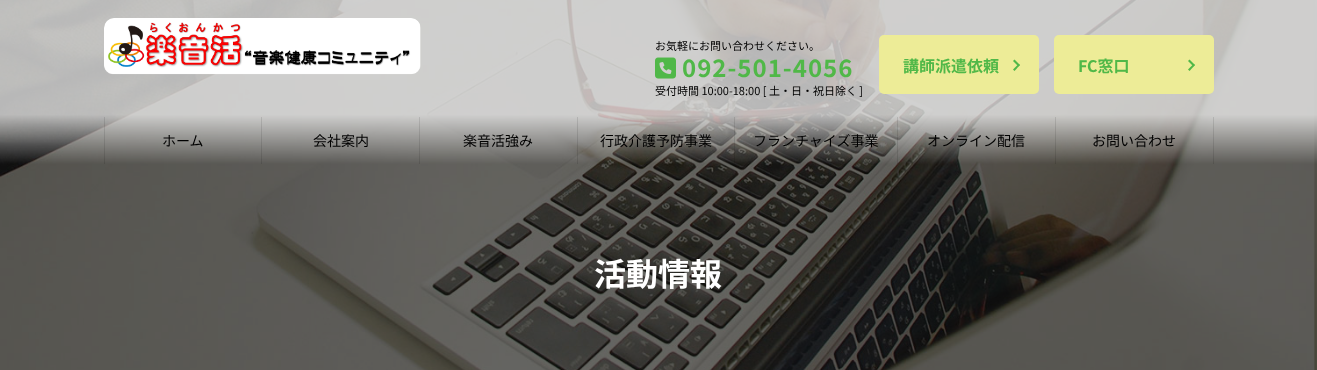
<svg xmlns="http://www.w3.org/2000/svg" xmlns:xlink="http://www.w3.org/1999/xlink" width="1317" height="370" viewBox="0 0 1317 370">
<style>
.cls-1{font:11px Noto Sans JP;fill:#000000}
.cls-2{font:bold 24px Noto Sans JP;letter-spacing:1px;fill:#50b848}
.cls-3{font:bold 16px Noto Sans JP;fill:#50b848}
.cls-4{font:14px Noto Sans JP;fill:#000000}
.cls-5{font:bold 32px Noto Sans JP;fill:#ffffff}
</style>
<rect width="100%" height="100%" fill="#ffffff"/>
<image xlink:href="image2.png" x="0" y="0" width="1317" height="370"/>
<image xlink:href="image0.png" x="104" y="18" width="317" height="57"/>
<image xlink:href="image1.png" x="655" y="57" width="21" height="22"/>
<rect fill="#edec97" x="879" y="35" width="160" height="59" rx="5"/>
<path fill="#50b848" d="M1014.5 59.5L1020 65L1018.5 66.5L1013 61Z"/>
<path fill="#50b848" d="M1018.5 64L1020 65L1014.5 71L1013 69.5Z"/>
<rect fill="#edec97" x="1054" y="35" width="160" height="59" rx="5"/>
<path fill="#50b848" d="M1189.5 59.5L1195 65L1193.5 66.5L1188 61Z"/>
<path fill="#50b848" d="M1193.5 64L1195 65L1189.5 71L1188 69.5Z"/>
<rect fill="#000000" fill-opacity="0.1" x="261" y="117" width="1" height="47"/>
<rect fill="#000000" fill-opacity="0.1" x="104" y="117" width="1" height="47"/>
<rect fill="#000000" fill-opacity="0.1" x="419" y="117" width="1" height="47"/>
<rect fill="#000000" fill-opacity="0.1" x="577" y="117" width="1" height="47"/>
<rect fill="#000000" fill-opacity="0.1" x="734" y="117" width="1" height="47"/>
<rect fill="#000000" fill-opacity="0.1" x="897" y="117" width="1" height="47"/>
<rect fill="#000000" fill-opacity="0.1" x="1055" y="117" width="1" height="47"/>
<rect fill="#000000" fill-opacity="0.1" x="1213" y="117" width="1" height="47"/>
<text class="cls-1" x="655" y="50">お気軽にお問い合わせください。</text>
<text class="cls-2" x="682" y="77">092-501-4056</text>
<text class="cls-1" x="655" y="95">受付時間 10:00-18:00 [ 土・日・祝日除く ]</text>
<text class="cls-3" x="903" y="72">講師派遣依頼</text>
<text class="cls-3" x="1078" y="72">FC窓口</text>
<text class="cls-4" x="162" y="146">ホーム</text>
<text class="cls-4" x="313" y="146">会社案内</text>
<text class="cls-4" x="463" y="146">楽音活強み</text>
<text class="cls-4" x="600" y="146">行政介護予防事業</text>
<text class="cls-4" x="753" y="146">フランチャイズ事業</text>
<text class="cls-4" x="927" y="146">オンライン配信</text>
<text class="cls-4" x="1092" y="146">お問い合わせ</text>
<text class="cls-5" x="594" y="286">活動情報</text>
</svg>
